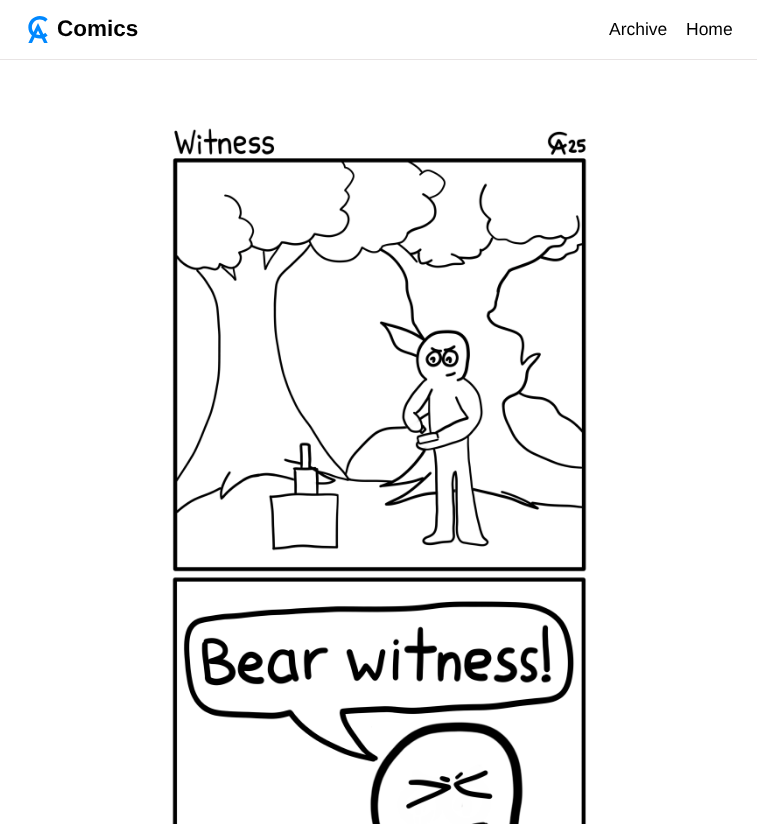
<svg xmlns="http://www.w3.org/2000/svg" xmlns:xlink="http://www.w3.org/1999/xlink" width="757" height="824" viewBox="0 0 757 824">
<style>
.cls-1{font:bold 22.5px Liberation Sans;fill:#000000}
.cls-2{font:17.5px Liberation Sans;fill:#000000}
</style>
<rect width="100%" height="100%" fill="#ffffff"/>
<rect fill="#e8e4e4" x="0" y="59" width="757" height="1"/>
<image xlink:href="image0.png" x="28" y="16" width="20" height="27"/>
<image xlink:href="image1.png" x="172" y="128" width="415" height="696"/>
<text class="cls-1" x="57" y="36">Comics</text>
<text class="cls-2" x="609" y="35">Archive</text>
<text class="cls-2" x="686" y="35">Home</text>
</svg>
